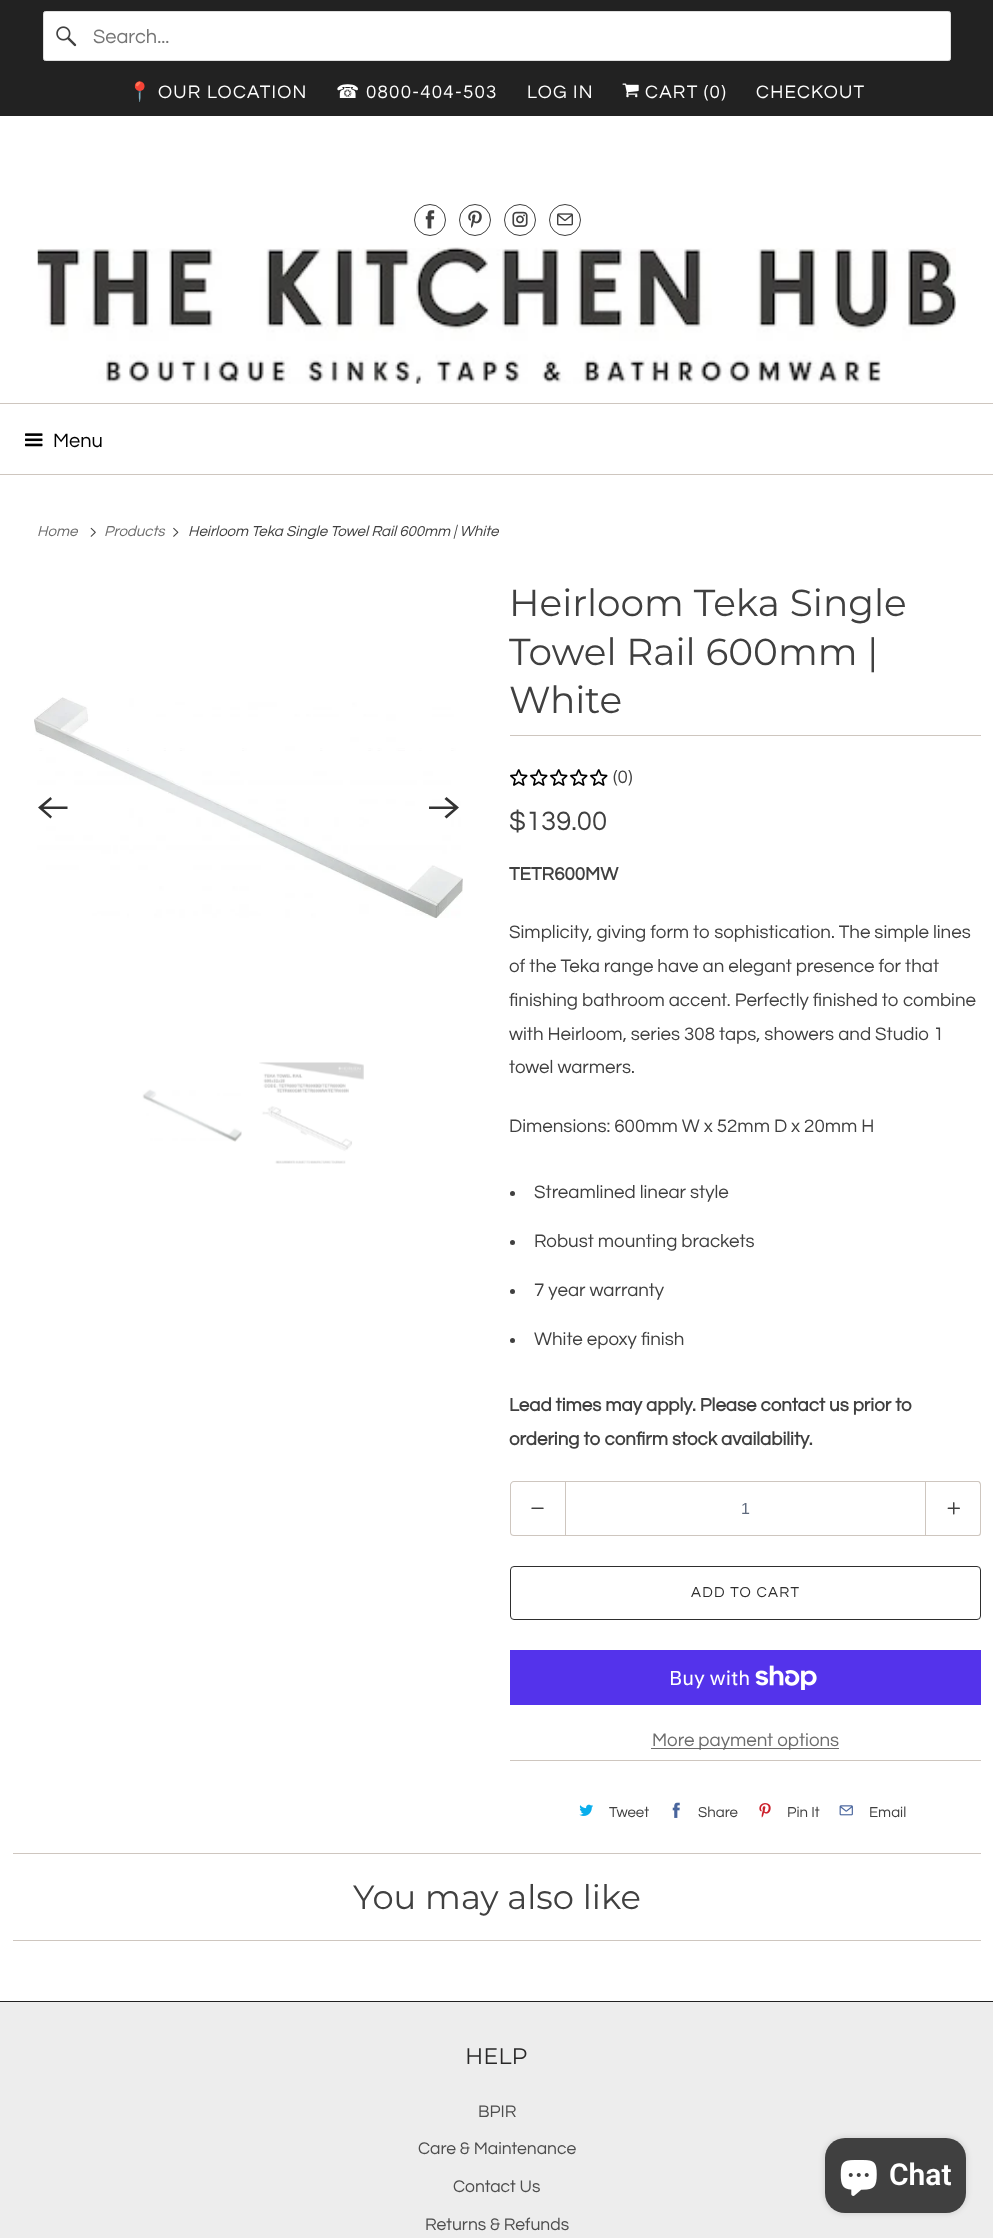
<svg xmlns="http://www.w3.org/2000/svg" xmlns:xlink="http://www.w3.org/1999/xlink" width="993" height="2238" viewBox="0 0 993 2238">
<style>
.cls-1{font:20px Questrial;fill:#757575}
.cls-2{font:18.75px Noto Color Emoji;letter-spacing:1.25px;fill:#ffffff}
.cls-3{font:18.75px Questrial;letter-spacing:1.25px;fill:#ffffff}
.cls-4{font:18.75px DejaVu Sans;letter-spacing:1.25px;fill:#ffffff}
.cls-5{font:20px Questrial;fill:#000000}
.cls-6{font:italic 15px Questrial;fill:#6c6c6c}
.cls-7{font:italic 15px Questrial;fill:#404040}
.cls-8{font:37.5px Montserrat;fill:#404040}
.cls-9{font:18.75px Questrial;fill:#404040}
.cls-10{font:27.5px Questrial;fill:#404040}
.cls-11{font:bold 18.75px Questrial;fill:#404040}
.cls-12{font:16px Liberation Sans;fill:#5f6a7d}
.cls-13{font:15px Questrial;letter-spacing:1.25px;fill:#2e2e2e}
.cls-14{font:20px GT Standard;fill:#ffffff}
.cls-15{font:18.75px Questrial;fill:#6c6c6c}
.cls-16{font:15px Questrial;fill:#404040}
.cls-17{font:33.75px Montserrat;fill:#404040}
.cls-18{font:22.5px Montserrat;fill:#292828}
.cls-19{font:17.5px Questrial;fill:#4d4d4d}
.cls-20{font:600 30px Roboto;fill:#ffffff}
</style>
<rect width="100%" height="100%" fill="#ffffff"/>
<rect fill="#222222" x="0" y="0" width="993" height="116"/>
<rect fill="#ffffff" stroke="#dfdfdf" x="43.5" y="11.5" width="907" height="49" rx="2"/>
<image xlink:href="image0.png" x="56" y="26" width="21" height="21"/>
<image xlink:href="image1.png" x="622" y="83" width="17" height="15"/>
<circle fill="none" stroke="#404040" cx="430" cy="220" r="15.5"/>
<image xlink:href="image2.png" x="425" y="210" width="10" height="19"/>
<circle fill="none" stroke="#404040" cx="475" cy="220" r="15.5"/>
<image xlink:href="image3.png" x="468" y="210" width="14" height="18"/>
<circle fill="none" stroke="#404040" cx="520" cy="220" r="15.5"/>
<image xlink:href="image4.png" x="512" y="211" width="16" height="16"/>
<circle fill="none" stroke="#404040" cx="565" cy="220" r="15.5"/>
<image xlink:href="image5.png" x="557" y="213" width="16" height="13"/>
<image xlink:href="image6.png" x="37" y="247" width="920" height="137"/>
<rect fill="#cec6bf" x="0" y="403" width="993" height="1"/>
<rect fill="#cec6bf" x="0" y="474" width="993" height="1"/>
<image xlink:href="image7.png" x="25" y="433" width="18" height="14"/>
<image xlink:href="image8.png" x="90" y="527" width="6" height="10"/>
<image xlink:href="image9.png" x="173" y="527" width="6" height="10"/>
<image xlink:href="image10.png" x="34" y="697" width="429" height="221"/>
<path fill="#333333" d="M67.5 806.5H43.5L52 799L50.5 797L38 807.5L50.5 818.5L52 816.5L43.5 809H67.5Z"/>
<path fill="#333333" d="M429 809H453.5L444.5 816.5L446.5 818.5L459 807.5L446.5 797L444.5 799L453.5 806.5H429Z"/>
<image xlink:href="image11.png" x="142" y="1089" width="100" height="53"/>
<image xlink:href="image12.png" x="259" y="1062" width="105" height="102"/>
<rect fill="#cec6bf" x="510" y="735" width="471" height="1"/>
<image xlink:href="image13.png" x="510" y="769" width="18" height="17"/>
<image xlink:href="image13.png" x="530" y="769" width="18" height="17"/>
<image xlink:href="image13.png" x="550" y="769" width="18" height="17"/>
<image xlink:href="image13.png" x="570" y="769" width="18" height="17"/>
<image xlink:href="image13.png" x="590" y="769" width="18" height="17"/>
<circle fill="#404040" cx="512.5" cy="1193.5" r="2.5"/>
<circle fill="#404040" cx="512.5" cy="1242.5" r="2.5"/>
<circle fill="#404040" cx="512.5" cy="1291.5" r="2.5"/>
<circle fill="#404040" cx="512.5" cy="1340.5" r="2.5"/>
<path fill="#cec6bf" fill-rule="evenodd" d="M514 1481H565V1536H514C512 1536 510 1535 510 1532V1485C510 1483 512 1481 514 1481ZM514 1482H565V1535H514C512 1535 511 1534 511 1532V1485C511 1484 512 1482 514 1482Z"/>
<image xlink:href="image14.png" x="531" y="1507" width="13" height="2"/>
<rect fill="none" stroke="#cec6bf" x="565.5" y="1481.5" width="360" height="54"/>
<path fill="#cec6bf" fill-rule="evenodd" d="M926 1481H978C980 1481 981 1483 981 1485V1532C981 1535 980 1536 978 1536H926ZM926 1482H978C979 1482 980 1484 980 1485V1532C980 1534 979 1535 978 1535H926Z"/>
<image xlink:href="image15.png" x="947" y="1502" width="13" height="13"/>
<rect fill="none" stroke="#2e2e2e" x="510.5" y="1566.5" width="470" height="53" rx="3.5"/>
<rect fill="#5433eb" x="510" y="1650" width="471" height="55"/>
<image xlink:href="image16.png" x="755" y="1665" width="62" height="25"/>
<rect fill="#6c6c6c" x="651" y="1748" width="188" height="1"/>
<rect fill="#cec6bf" x="510" y="1760" width="471" height="1"/>
<image xlink:href="image17.png" x="579" y="1804" width="14" height="12"/>
<image xlink:href="image18.png" x="672" y="1802" width="8" height="16"/>
<image xlink:href="image19.png" x="759" y="1803" width="12" height="15"/>
<image xlink:href="image20.png" x="839" y="1805" width="14" height="11"/>
<rect fill="#cec6bf" x="13" y="1853" width="968" height="1"/>
<rect fill="#cec6bf" x="13" y="1940" width="968" height="1"/>
<rect fill="#ededed" x="0" y="2002" width="993" height="236"/>
<rect fill="#222222" x="0" y="2001" width="993" height="1"/>
<rect fill="#000000" fill-opacity="0.15" filter="blur(3px)" x="825" y="2138" width="141" height="75" rx="20"/>
<rect fill="#404040" x="825" y="2138" width="141" height="75" rx="20"/>
<image xlink:href="image21.png" x="840" y="2160" width="37" height="36"/>
<text class="cls-1" x="93" y="43">Search...</text>
<text class="cls-2" x="128" y="98">📍</text>
<text class="cls-3" x="158" y="98">OUR LOCATION</text>
<text class="cls-4" x="336" y="98">☎︎</text>
<text class="cls-3" x="366" y="98">0800-404-503</text>
<text class="cls-3" x="527" y="98">LOG IN</text>
<text class="cls-3" x="645" y="98">CART (0)</text>
<text class="cls-3" x="756" y="98">CHECKOUT</text>
<text class="cls-5" x="53" y="447">Menu</text>
<text class="cls-6" x="37" y="536">Home</text>
<text class="cls-6" x="104" y="536">Products</text>
<text class="cls-7" x="188" y="536">Heirloom Teka Single Towel Rail 600mm | White</text>
<text class="cls-8"><tspan x="509" y="616">Heirloom Teka Single</tspan><tspan x="509" y="665">Towel Rail 600mm |</tspan><tspan x="509" y="713">White</tspan></text>
<text class="cls-9" x="613" y="783">(0)</text>
<text class="cls-10" x="509" y="830">$139.00</text>
<text class="cls-11" x="509" y="880">TETR600MW</text>
<text class="cls-9"><tspan x="509" y="938">Simplicity, giving form to sophistication. The simple lines</tspan><tspan x="509" y="972">of the Teka range have an elegant presence for that</tspan><tspan x="509" y="1006">finishing bathroom accent. Perfectly finished to combine</tspan><tspan x="509" y="1040">with Heirloom, series 308 taps, showers and Studio 1</tspan><tspan x="509" y="1073">towel warmers.</tspan></text>
<text class="cls-9" x="509" y="1132">Dimensions: 600mm W x 52mm D x 20mm H</text>
<text class="cls-9" x="534" y="1198">Streamlined linear style</text>
<text class="cls-9" x="534" y="1247">Robust mounting brackets</text>
<text class="cls-9" x="534" y="1296">7 year warranty</text>
<text class="cls-9" x="534" y="1345">White epoxy finish</text>
<text class="cls-11"><tspan x="509" y="1411">Lead times may apply. Please contact us prior to</tspan><tspan x="509" y="1445">ordering to confirm stock availability.</tspan></text>
<text class="cls-12" x="741" y="1514">1</text>
<text class="cls-13" x="691" y="1597">ADD TO CART</text>
<text class="cls-14" x="669" y="1685">Buy with</text>
<text class="cls-15" x="652" y="1746">More payment options</text>
<text class="cls-16" x="609" y="1817">Tweet</text>
<text class="cls-16" x="698" y="1817">Share</text>
<text class="cls-16" x="787" y="1817">Pin It</text>
<text class="cls-16" x="869" y="1817">Email</text>
<text class="cls-17" x="353" y="1909">You may also like</text>
<text class="cls-18" x="465" y="2064">HELP</text>
<text class="cls-19" x="478" y="2117">BPIR</text>
<text class="cls-19" x="418" y="2154">Care &amp; Maintenance</text>
<text class="cls-19" x="453" y="2192">Contact Us</text>
<text class="cls-19" x="425" y="2230">Returns &amp; Refunds</text>
<text class="cls-20" x="889" y="2185">Chat</text>
</svg>
